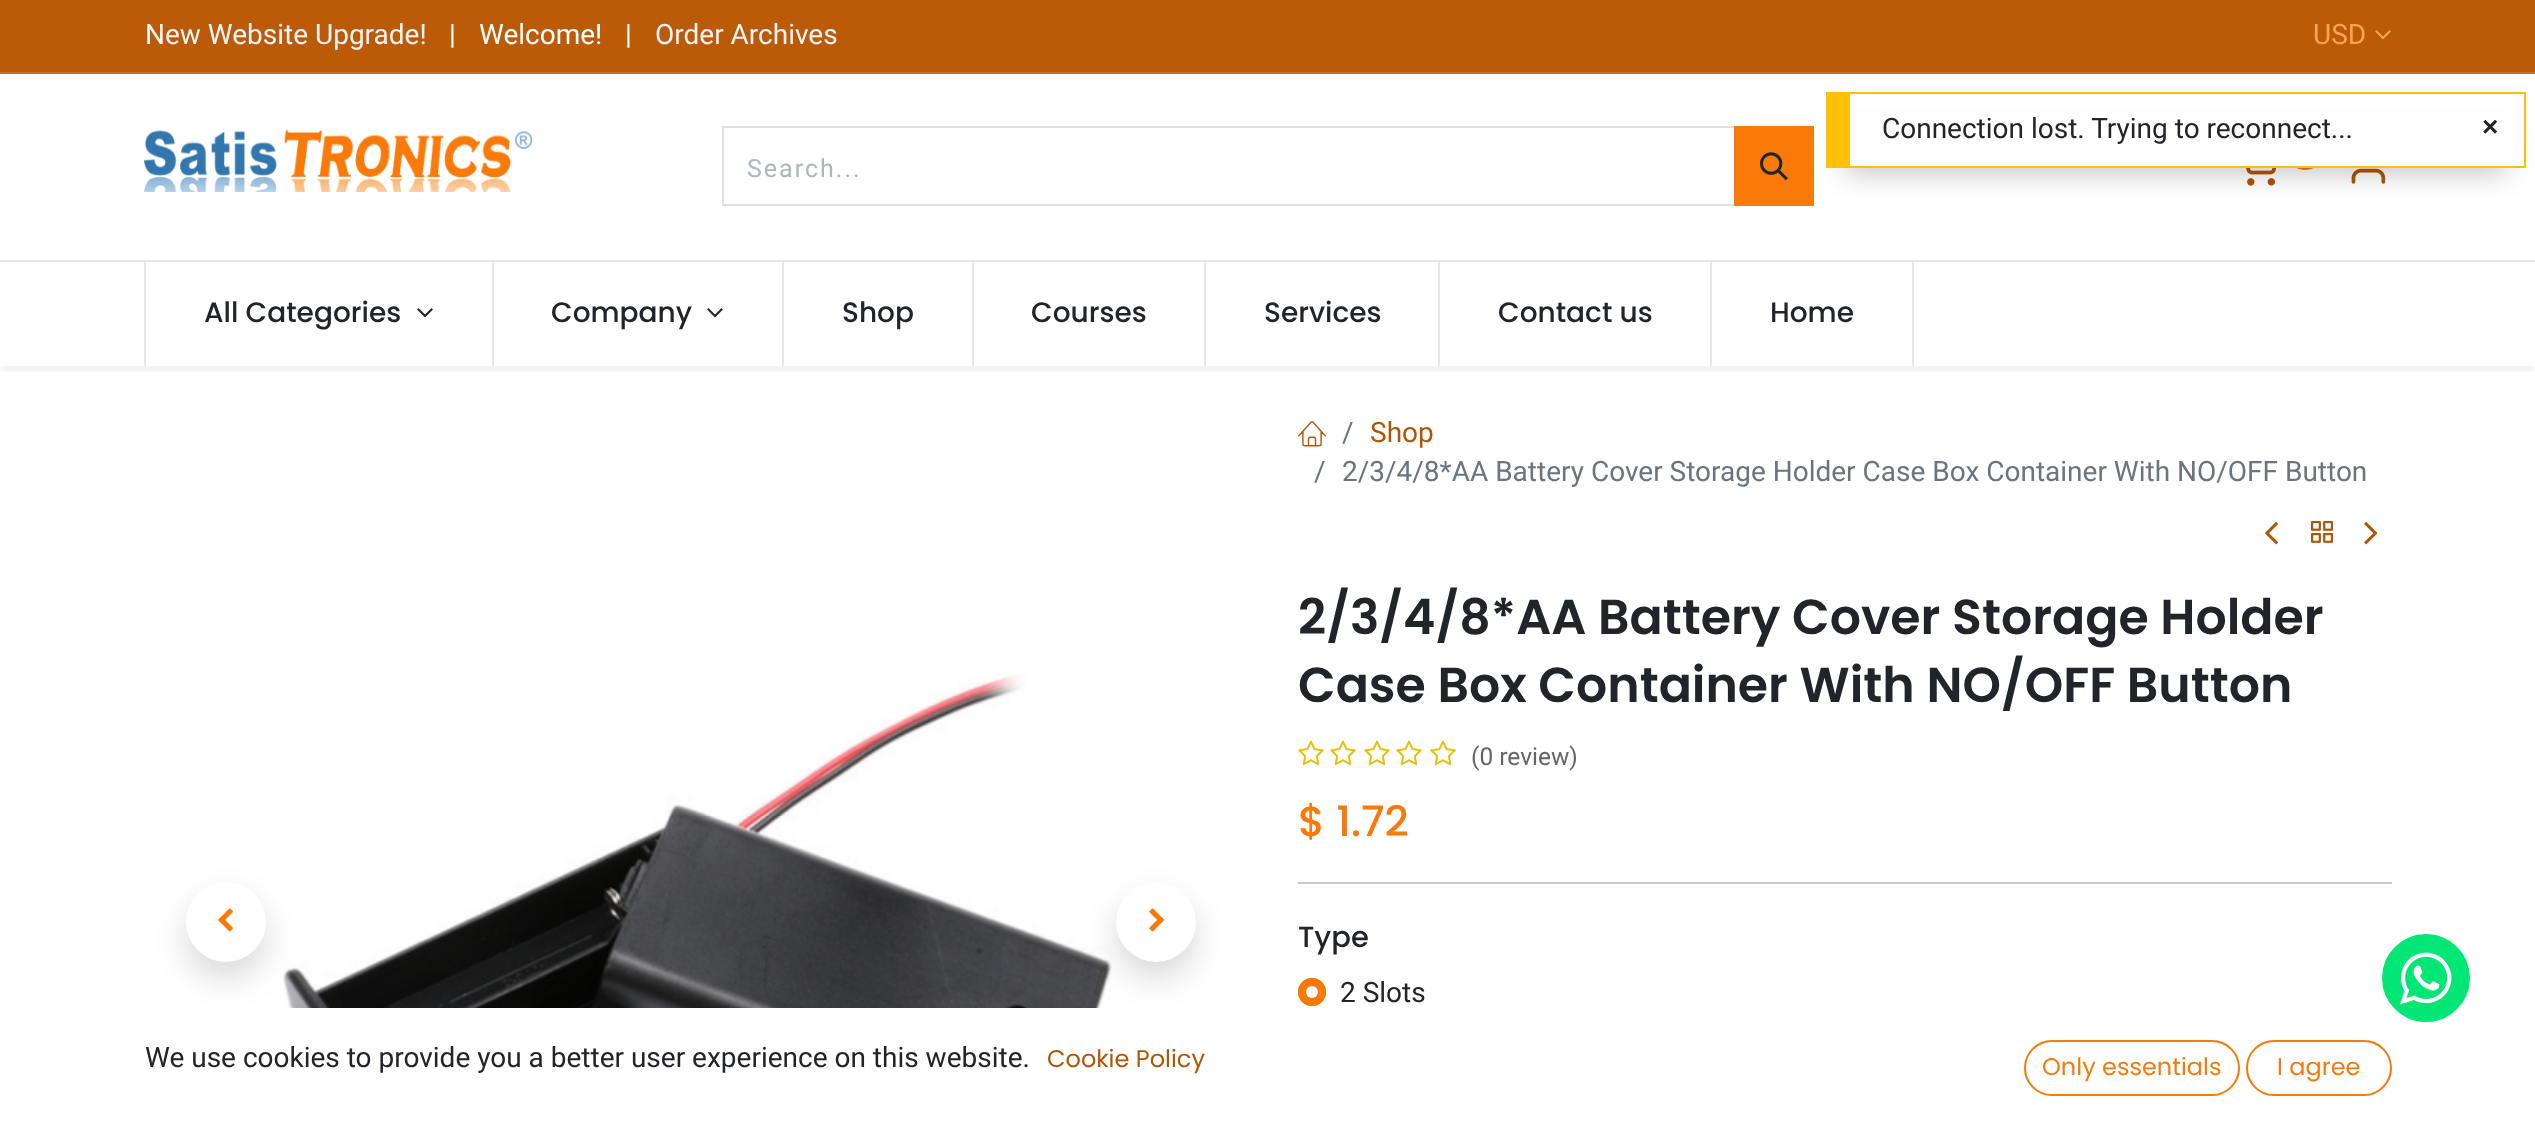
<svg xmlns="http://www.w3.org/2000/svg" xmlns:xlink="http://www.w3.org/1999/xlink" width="2535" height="1128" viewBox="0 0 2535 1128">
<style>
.cls-1{font:28px Roboto;fill:#edf3f8}
.cls-2{font:28px Roboto;fill:#ffffff}
.cls-3{font:28px Roboto;fill:#fba254}
.cls-4{font:25px Roboto;letter-spacing:2px;fill:#adb5bd}
.cls-5{font:500 28px Poppins;fill:#212529}
.cls-6{font:28px Roboto;fill:#6c757d}
.cls-7{font:28px Roboto;fill:#b15504}
.cls-8{font:600 49px Poppins;fill:#212529}
.cls-9{font:24.5px Roboto;fill:#646669}
.cls-10{font:500 42px Poppins;fill:#f97909}
.cls-11{font:500 29px Poppins;fill:#212529}
.cls-12{font:28px Roboto;fill:#212529}
.cls-13{font:24px Poppins;fill:#b15504}
.cls-14{font:24px Poppins;fill:#f97909}
.cls-15{font:bold 28px Liberation Sans;fill:#212529}
</style>
<defs>
<clipPath id="clip1"><rect x="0" y="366" width="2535" height="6"/></clipPath>
</defs>
<rect width="100%" height="100%" fill="#ffffff"/>
<rect fill="#bb5b07" x="0" y="0" width="2535" height="72"/>
<rect fill="#c36f25" x="0" y="72" width="2535" height="2"/>
<image xlink:href="image0.png" x="2375" y="30" width="16" height="10"/>
<rect fill="#e4e5e5" x="0" y="260" width="2535" height="2"/>
<image xlink:href="image1.png" x="144" y="129" width="388" height="63"/>
<rect fill="none" stroke="#dee2e6" stroke-width="2" x="723" y="127" width="1012" height="78"/>
<rect fill="#f97909" x="1734" y="126" width="80" height="80"/>
<image xlink:href="image2.png" x="1760" y="152" width="28" height="29"/>
<circle fill="#f97909" cx="2305" cy="151" r="19"/>
<image xlink:href="image3.png" x="2246" y="168" width="31" height="18"/>
<image xlink:href="image4.png" x="2351" y="168" width="35" height="16"/>
<g clip-path="url(#clip1)">
<rect fill="#000000" fill-opacity="0.07" filter="blur(4px)" x="0" y="266" width="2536" height="104"/>
</g>
<rect fill="#e4e5e5" x="144" y="262" width="2" height="104"/>
<image xlink:href="image5.png" x="417" y="308" width="16" height="10"/>
<rect fill="#e4e5e5" x="492" y="262" width="2" height="104"/>
<image xlink:href="image5.png" x="707" y="308" width="16" height="10"/>
<rect fill="#e4e5e5" x="782" y="262" width="2" height="104"/>
<rect fill="#e4e5e5" x="972" y="262" width="2" height="104"/>
<rect fill="#e4e5e5" x="1204" y="262" width="2" height="104"/>
<rect fill="#e4e5e5" x="1438" y="262" width="2" height="104"/>
<rect fill="#e4e5e5" x="1912" y="262" width="2" height="104"/>
<rect fill="#e4e5e5" x="1710" y="262" width="2" height="104"/>
<image xlink:href="image7.png" x="283" y="674" width="829" height="334"/>
<rect fill="#000000" fill-opacity="0.15" filter="blur(16px)" x="186" y="898" width="80" height="80" rx="40"/>
<circle fill="#ffffff" cx="226" cy="922" r="40"/>
<image xlink:href="image6.png" x="218" y="908" width="15" height="24"/>
<rect fill="#000000" fill-opacity="0.15" filter="blur(16px)" x="1116" y="898" width="80" height="80" rx="40"/>
<circle fill="#ffffff" cx="1156" cy="922" r="40"/>
<image xlink:href="image8.png" x="1149" y="908" width="15" height="24"/>
<image xlink:href="image9.png" x="1298" y="421" width="28" height="26"/>
<image xlink:href="image10.png" x="2265" y="522" width="13" height="23"/>
<image xlink:href="image11.png" x="2311" y="520" width="22" height="23"/>
<image xlink:href="image12.png" x="2364" y="522" width="14" height="23"/>
<image xlink:href="image13.png" x="1298" y="740" width="26" height="26"/>
<image xlink:href="image13.png" x="1330" y="740" width="26" height="26"/>
<image xlink:href="image13.png" x="1364" y="740" width="26" height="26"/>
<image xlink:href="image13.png" x="1396" y="740" width="26" height="26"/>
<image xlink:href="image13.png" x="1430" y="740" width="26" height="26"/>
<rect fill="#c8c9ca" x="1298" y="882" width="1094" height="2"/>
<circle fill="#f97909" cx="1312" cy="992" r="14"/>
<circle fill="#ffffff" cx="1312" cy="992" r="6"/>
<circle fill="none" stroke="#f97909" stroke-width="2" cx="1312" cy="992" r="13"/>
<rect fill="none" stroke="#f97909" stroke-width="2" x="2025" y="1041" width="214" height="54" rx="27"/>
<rect fill="none" stroke="#f97909" stroke-width="2" x="2247" y="1041" width="144" height="54" rx="27"/>
<rect fill="#000000" fill-opacity="0.25" filter="blur(14px)" x="1846" y="136" width="660" height="36"/>
<rect fill="#ffffff" x="1850" y="112" width="674" height="54"/>
<rect fill="#ffc107" x="1850" y="92" width="676" height="2"/>
<rect fill="#ffc107" x="2524" y="92" width="2" height="76"/>
<rect fill="#ffc107" x="1850" y="166" width="676" height="2"/>
<rect fill="#ffc107" x="1826" y="92" width="24" height="76"/>
<circle fill="#01e675" stroke="#ffffff" stroke-width="6" cx="2426" cy="978" r="47"/>
<image xlink:href="image14.png" x="2400" y="952" width="52" height="53"/>
<text class="cls-1" x="145" y="44">New Website Upgrade!</text>
<text class="cls-2" x="449" y="44">|</text>
<text class="cls-2" x="479" y="44">Welcome!</text>
<text class="cls-2" x="625" y="44">|</text>
<text class="cls-1" x="655" y="44">Order Archives</text>
<text class="cls-3" x="2313" y="44">USD</text>
<text class="cls-4" x="747" y="177">Search...</text>
<text class="cls-5" x="204" y="322">All Categories</text>
<text class="cls-5" x="551" y="322">Company</text>
<text class="cls-5" x="842" y="322">Shop</text>
<text class="cls-5" x="1031" y="322">Courses</text>
<text class="cls-5" x="1264" y="322">Services</text>
<text class="cls-5" x="1498" y="322">Contact us</text>
<text class="cls-5" x="1770" y="322">Home</text>
<text class="cls-6" x="1342" y="442">/</text>
<text class="cls-7" x="1370" y="442">Shop</text>
<text class="cls-6" x="1314" y="481">/</text>
<text class="cls-6" x="1342" y="481">2/3/4/8*AA Battery Cover Storage Holder Case Box Container With NO/OFF Button</text>
<text class="cls-8"><tspan x="1298" y="634">2/3/4/8*AA Battery Cover Storage Holder</tspan><tspan x="1298" y="702">Case Box Container With NO/OFF Button</tspan></text>
<text class="cls-9" x="1471" y="765">(0 review)</text>
<text class="cls-10" x="1298" y="836">$ 1.72</text>
<text class="cls-11" x="1298" y="947">Type</text>
<text class="cls-12" x="1340" y="1002">2 Slots</text>
<text class="cls-12" x="145" y="1067">We use cookies to provide you a better user experience on this website.</text>
<text class="cls-13" x="1047" y="1067">Cookie Policy</text>
<text class="cls-14" x="2042" y="1075">Only essentials</text>
<text class="cls-14" x="2277" y="1075">I agree</text>
<text class="cls-12" x="1882" y="138">Connection lost. Trying to reconnect...</text>
<text class="cls-15" x="2482" y="136">×</text>
</svg>
